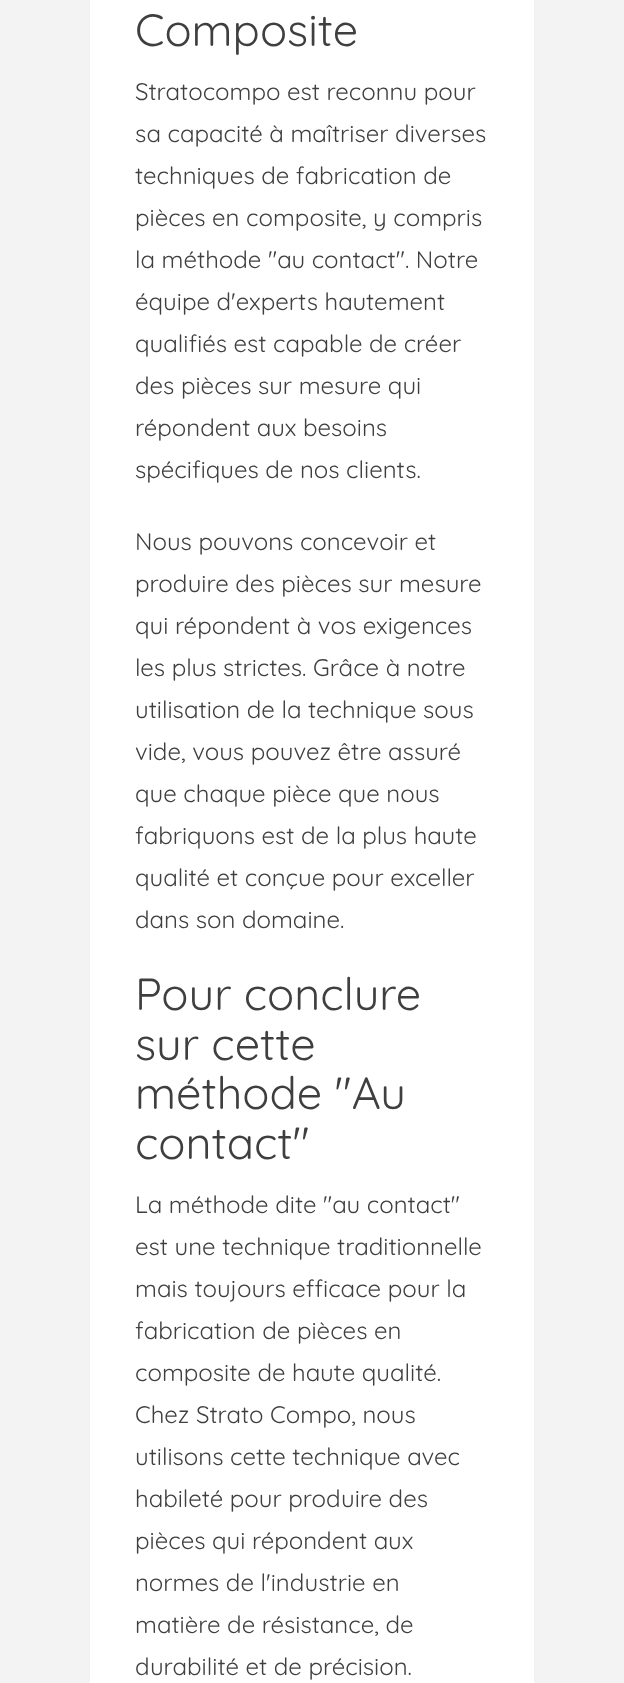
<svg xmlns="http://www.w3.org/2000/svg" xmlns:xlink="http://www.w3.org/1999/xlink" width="624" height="1683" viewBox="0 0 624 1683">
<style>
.cls-1{font:300 45px Quicksand;fill:#3f3f3f}
.cls-2{font:300 24px Quicksand;fill:#3f3f3f}
</style>
<rect width="100%" height="100%" fill="#f3f3f3"/>
<rect fill="#ffffff" x="90" y="0" width="444" height="1683"/>
<text class="cls-1" x="135" y="46">Composite</text>
<text class="cls-2"><tspan x="135" y="100">Stratocompo est reconnu pour</tspan><tspan x="135" y="142">sa capacité à maîtriser diverses</tspan><tspan x="135" y="184">techniques de fabrication de</tspan><tspan x="135" y="226">pièces en composite, y compris</tspan><tspan x="135" y="268">la méthode "au contact". Notre</tspan><tspan x="135" y="310">équipe d'experts hautement</tspan><tspan x="135" y="352">qualifiés est capable de créer</tspan><tspan x="135" y="394">des pièces sur mesure qui</tspan><tspan x="135" y="436">répondent aux besoins</tspan><tspan x="135" y="478">spécifiques de nos clients.</tspan></text>
<text class="cls-2"><tspan x="135" y="550">Nous pouvons concevoir et</tspan><tspan x="135" y="592">produire des pièces sur mesure</tspan><tspan x="135" y="634">qui répondent à vos exigences</tspan><tspan x="135" y="676">les plus strictes. Grâce à notre</tspan><tspan x="135" y="718">utilisation de la technique sous</tspan><tspan x="135" y="760">vide, vous pouvez être assuré</tspan><tspan x="135" y="802">que chaque pièce que nous</tspan><tspan x="135" y="844">fabriquons est de la plus haute</tspan><tspan x="135" y="886">qualité et conçue pour exceller</tspan><tspan x="135" y="928">dans son domaine.</tspan></text>
<text class="cls-1"><tspan x="135" y="1010">Pour conclure</tspan><tspan x="135" y="1060">sur cette</tspan><tspan x="135" y="1109">méthode "Au</tspan><tspan x="135" y="1159">contact"</tspan></text>
<text class="cls-2"><tspan x="135" y="1213">La méthode dite "au contact"</tspan><tspan x="135" y="1255">est une technique traditionnelle</tspan><tspan x="135" y="1297">mais toujours efficace pour la</tspan><tspan x="135" y="1339">fabrication de pièces en</tspan><tspan x="135" y="1381">composite de haute qualité.</tspan><tspan x="135" y="1423">Chez Strato Compo, nous</tspan><tspan x="135" y="1465">utilisons cette technique avec</tspan><tspan x="135" y="1507">habileté pour produire des</tspan><tspan x="135" y="1549">pièces qui répondent aux</tspan><tspan x="135" y="1591">normes de l'industrie en</tspan><tspan x="135" y="1633">matière de résistance, de</tspan><tspan x="135" y="1675">durabilité et de précision.</tspan></text>
</svg>
